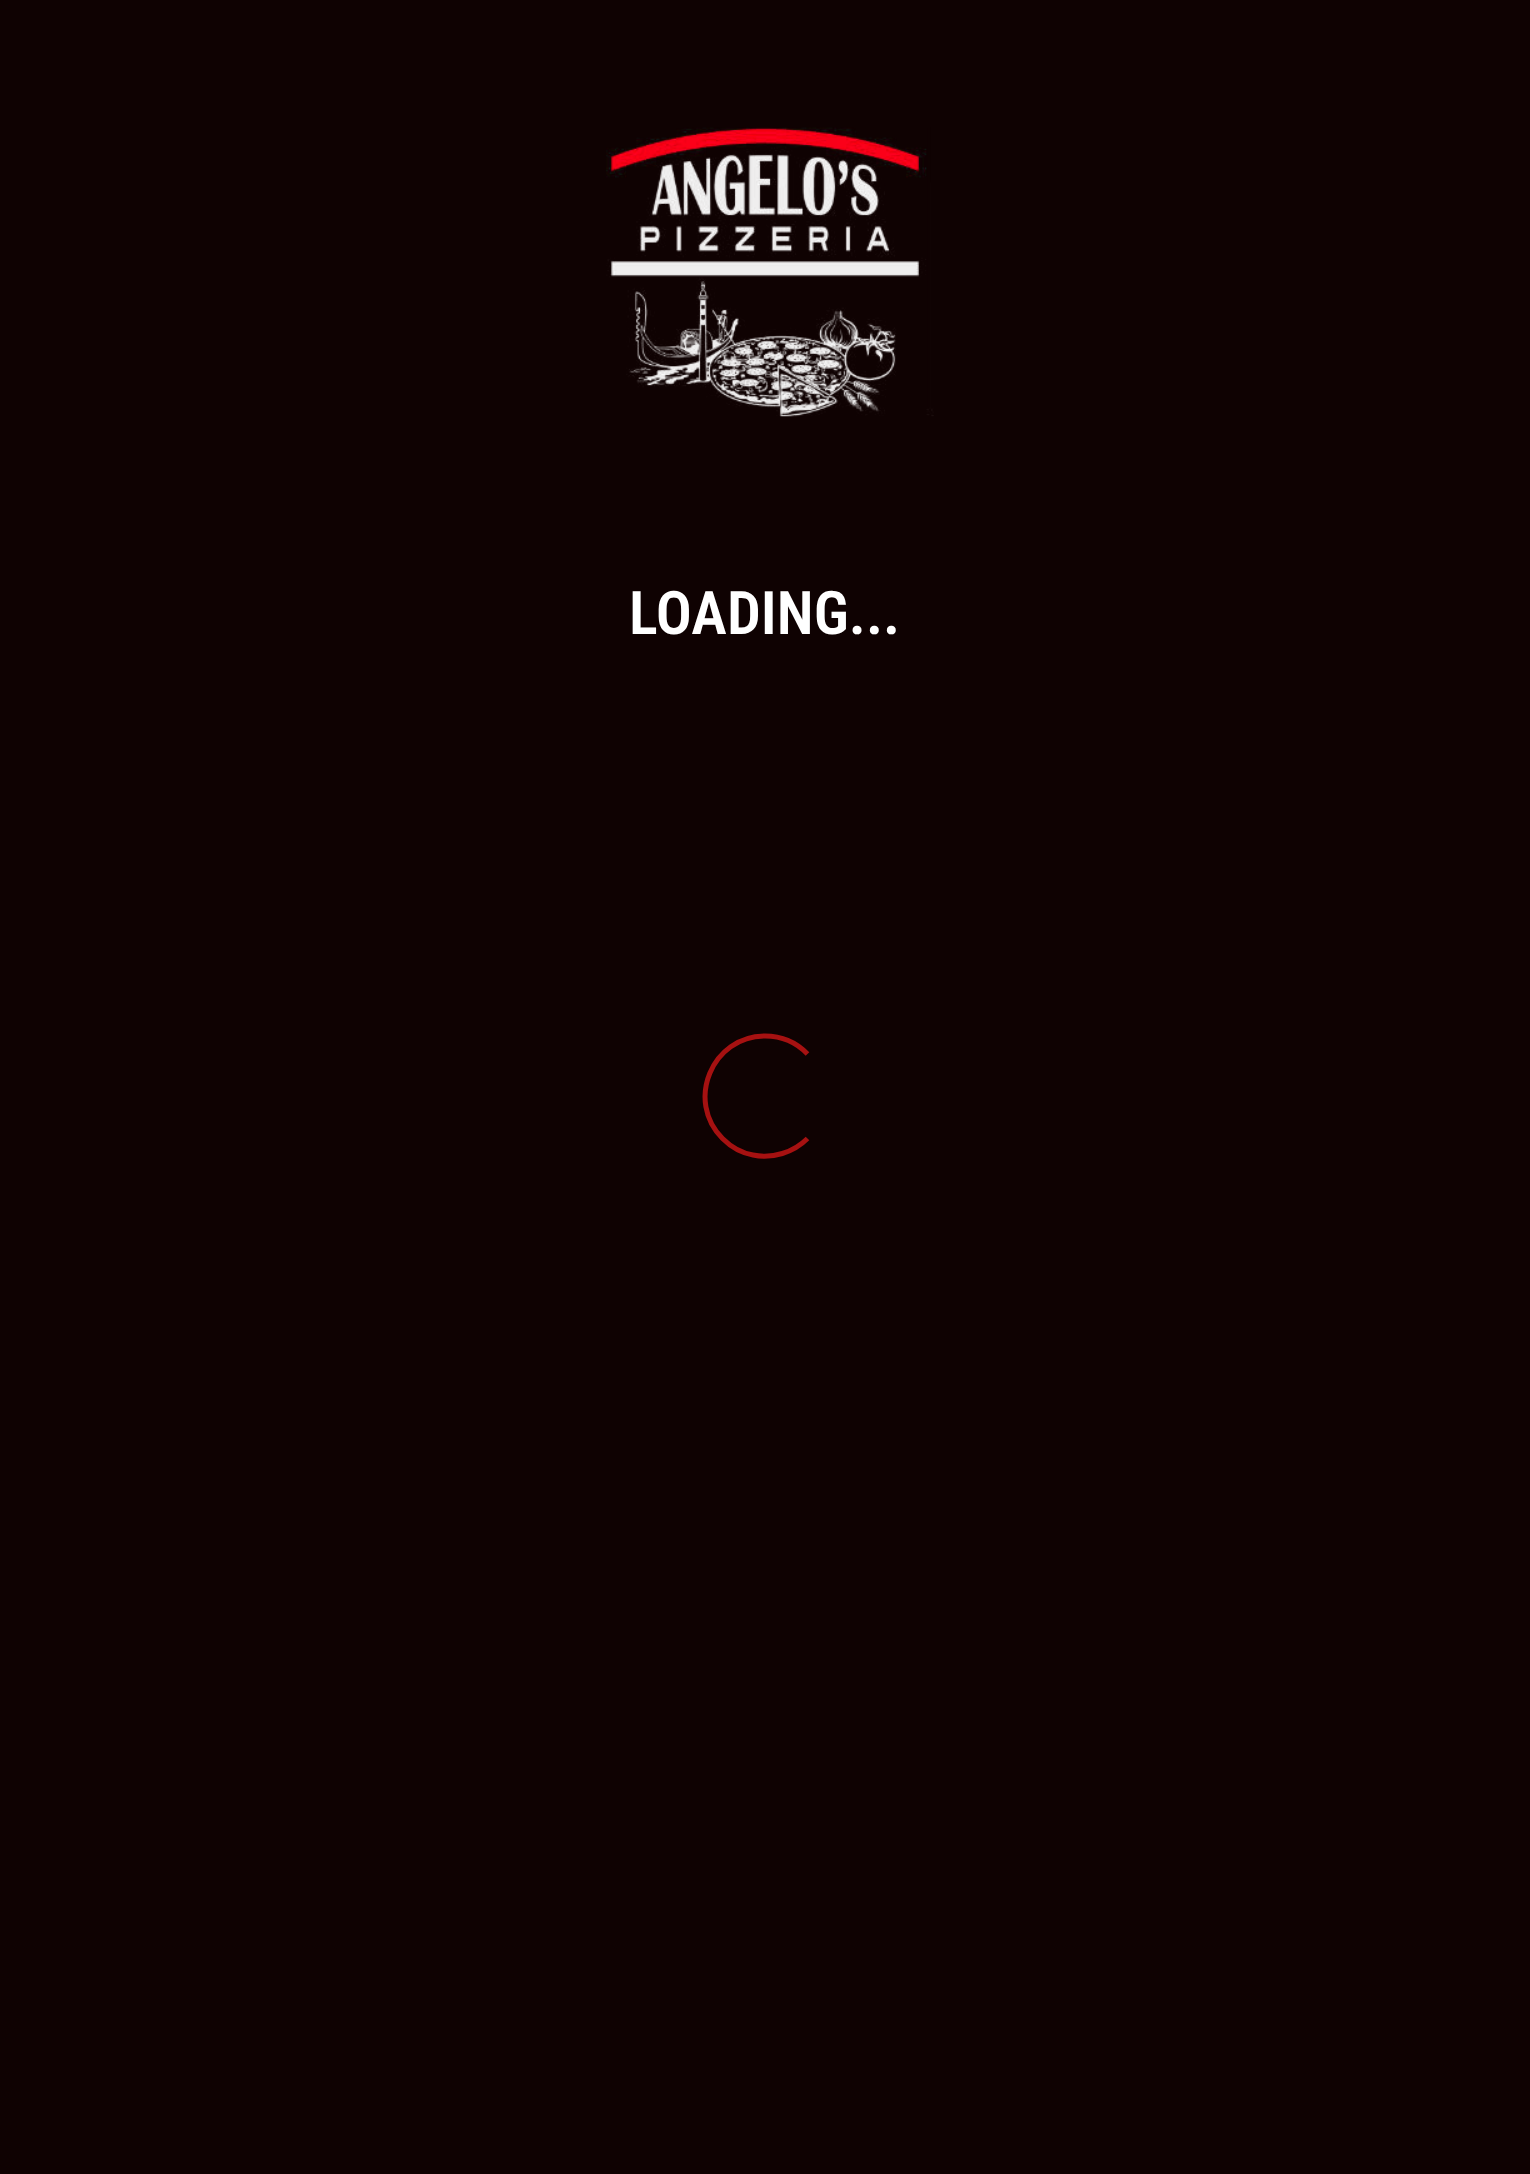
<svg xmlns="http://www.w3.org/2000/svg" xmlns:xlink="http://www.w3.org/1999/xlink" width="1530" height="2174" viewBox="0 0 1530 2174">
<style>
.cls-1{font:600 60px Roboto Condensed;fill:#ffffff}
</style>
<rect width="100%" height="100%" fill="#0f0202"/>
<image xlink:href="image0.png" x="606" y="127" width="328" height="290"/>
<path fill="none" stroke="#a61111" stroke-width="5" d="M807.5 1138.5C793.5 1152.5 772.5 1159 753 1155C741.5 1153 731 1147 722.5 1138.5C685 1101 712 1036 765 1036C781 1036 796.5 1042.5 807.5 1054"/>
<text class="cls-1" x="629" y="634">LOADING...</text>
</svg>
